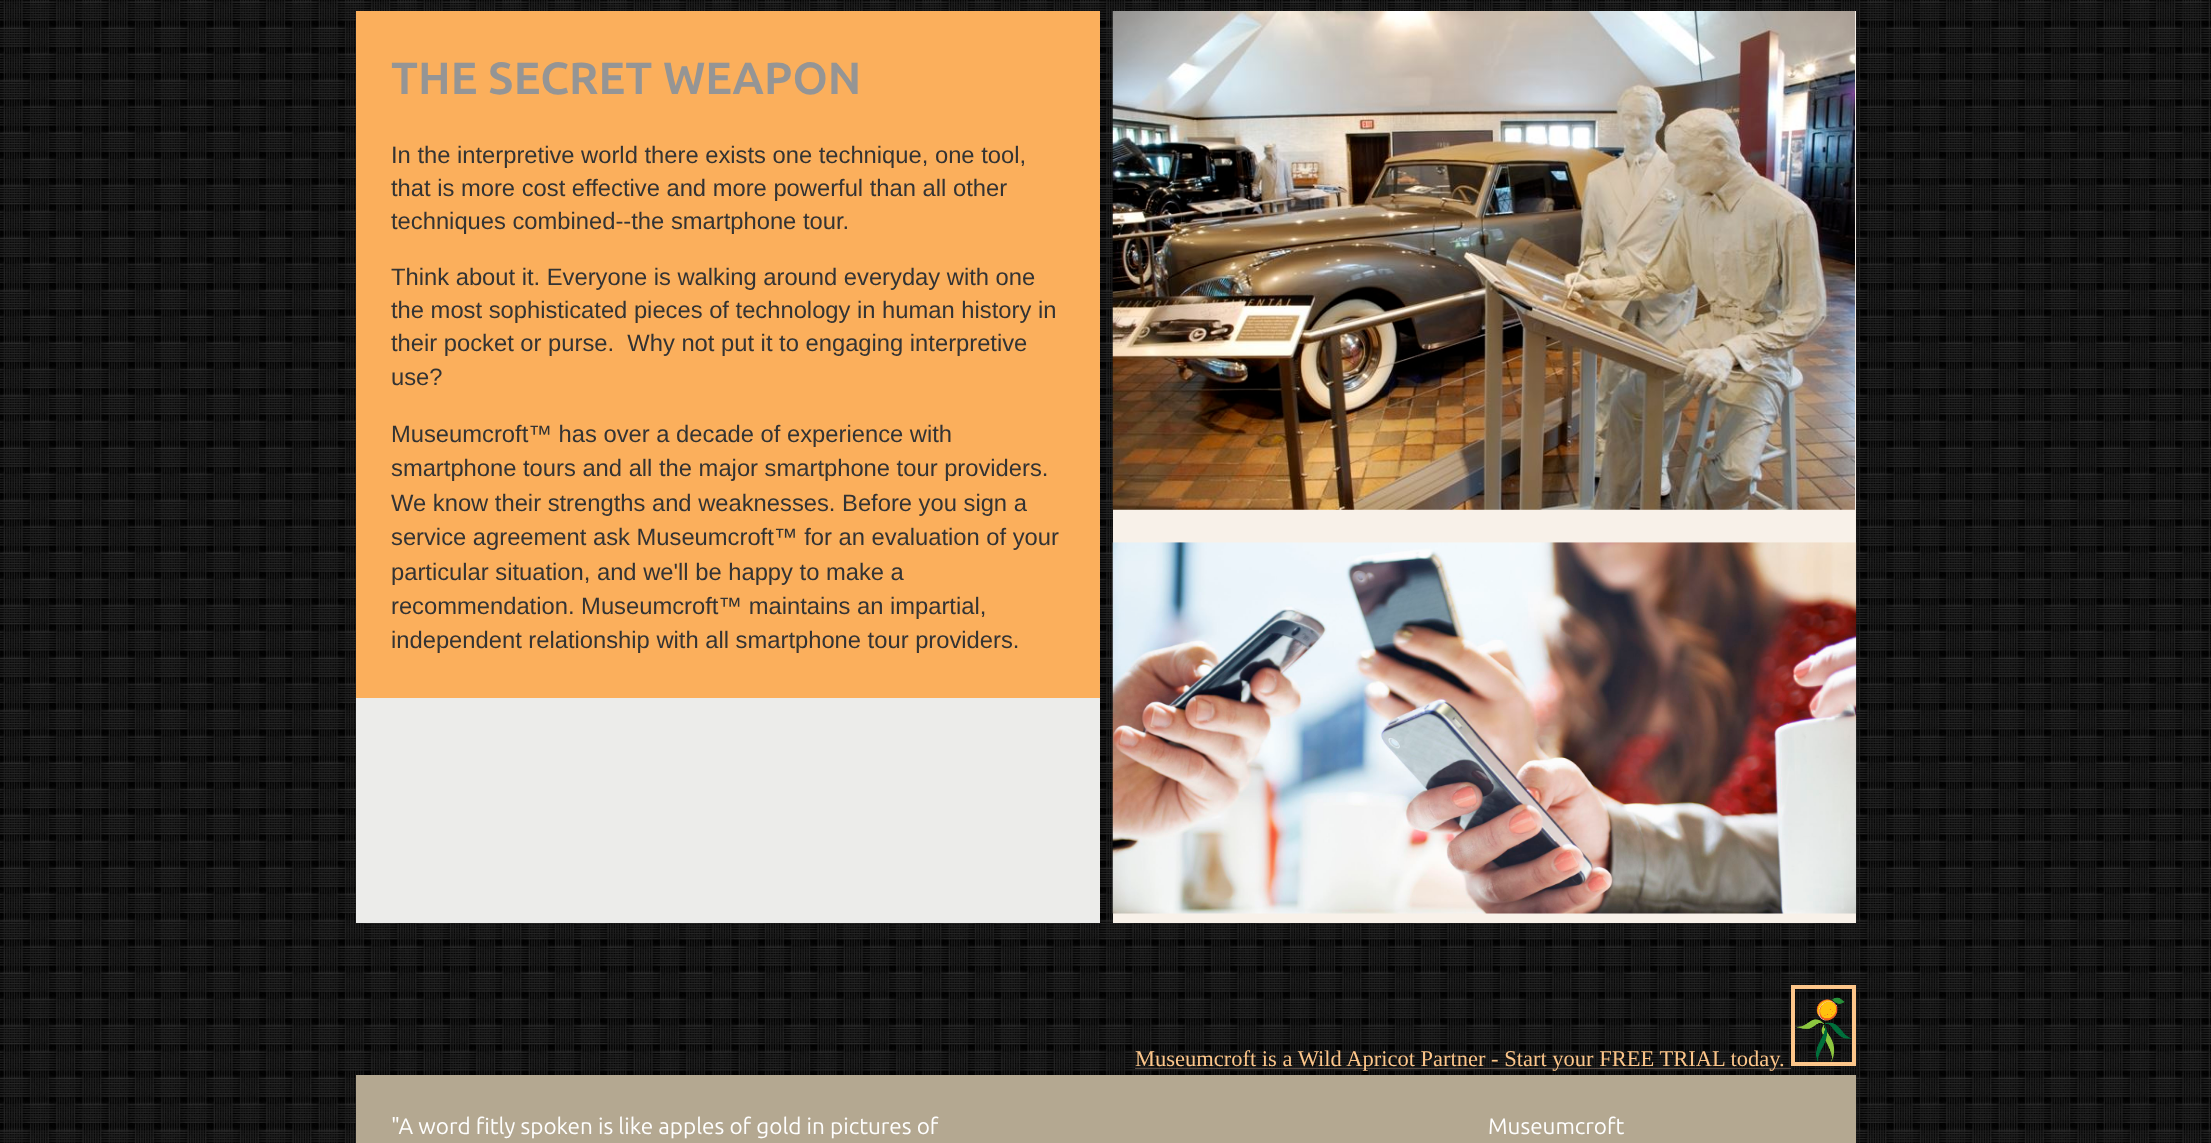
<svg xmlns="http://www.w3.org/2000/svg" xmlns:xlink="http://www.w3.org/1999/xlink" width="2211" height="1143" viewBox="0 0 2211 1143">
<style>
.cls-1{font:bold 45px Ubuntu;fill:#959595}
.cls-2{font:23.75px Liberation Sans;fill:#333333}
.cls-3{font:22.5px Liberation Serif;fill:#fdc68a}
.cls-4{font:22.5px Ubuntu;fill:#ffffff}
</style>
<rect width="100%" height="100%" fill="#ffffff"/>
<image xlink:href="image0.png" x="0" y="0" width="2211" height="1143"/>
<rect fill="#ececea" x="356" y="698" width="744" height="225"/>
<rect fill="#fbaf5c" x="356" y="11" width="744" height="687"/>
<rect fill="#f8f1e9" x="1113" y="11" width="743" height="912"/>
<image xlink:href="image1.png" x="1112" y="11" width="743" height="499"/>
<image xlink:href="image2.png" x="1112" y="542" width="745" height="372"/>
<rect fill="#534741" x="1135" y="1068" width="656" height="1"/>
<rect fill="none" stroke="#fdc68a" stroke-width="4" x="1793" y="987" width="61" height="77"/>
<image xlink:href="image3.png" x="1795" y="997" width="57" height="65"/>
<rect fill="#b4a891" x="356" y="1075" width="1500" height="68"/>
<text class="cls-1" x="391" y="94">THE SECRET WEAPON</text>
<text class="cls-2"><tspan x="391" y="163">In the interpretive world there exists one technique, one tool,</tspan><tspan x="391" y="196">that is more cost effective and more powerful than all other</tspan><tspan x="391" y="229">techniques combined--the smartphone tour.</tspan></text>
<text class="cls-2" xml:space="preserve"><tspan x="391" y="285">Think about it. Everyone is walking around everyday with one</tspan><tspan x="391" y="318">the most sophisticated pieces of technology in human history in</tspan><tspan x="391" y="351">their pocket or purse.  Why not put it to engaging interpretive</tspan><tspan x="391" y="385">use?</tspan></text>
<text class="cls-2"><tspan x="391" y="442">Museumcroft™ has over a decade of experience with</tspan><tspan x="391" y="476">smartphone tours and all the major smartphone tour providers.</tspan><tspan x="391" y="511">We know their strengths and weaknesses. Before you sign a</tspan><tspan x="391" y="545">service agreement ask Museumcroft™ for an evaluation of your</tspan><tspan x="391" y="580">particular situation, and we'll be happy to make a</tspan><tspan x="391" y="614">recommendation. Museumcroft™ maintains an impartial,</tspan><tspan x="391" y="648">independent relationship with all smartphone tour providers.</tspan></text>
<text class="cls-3" x="1135" y="1066">Museumcroft is a Wild Apricot Partner - Start your FREE TRIAL today.</text>
<text class="cls-4" x="391" y="1134">"A word fitly spoken is like apples of gold in pictures of</text>
<text class="cls-4" x="1488" y="1134">Museumcroft</text>
</svg>
